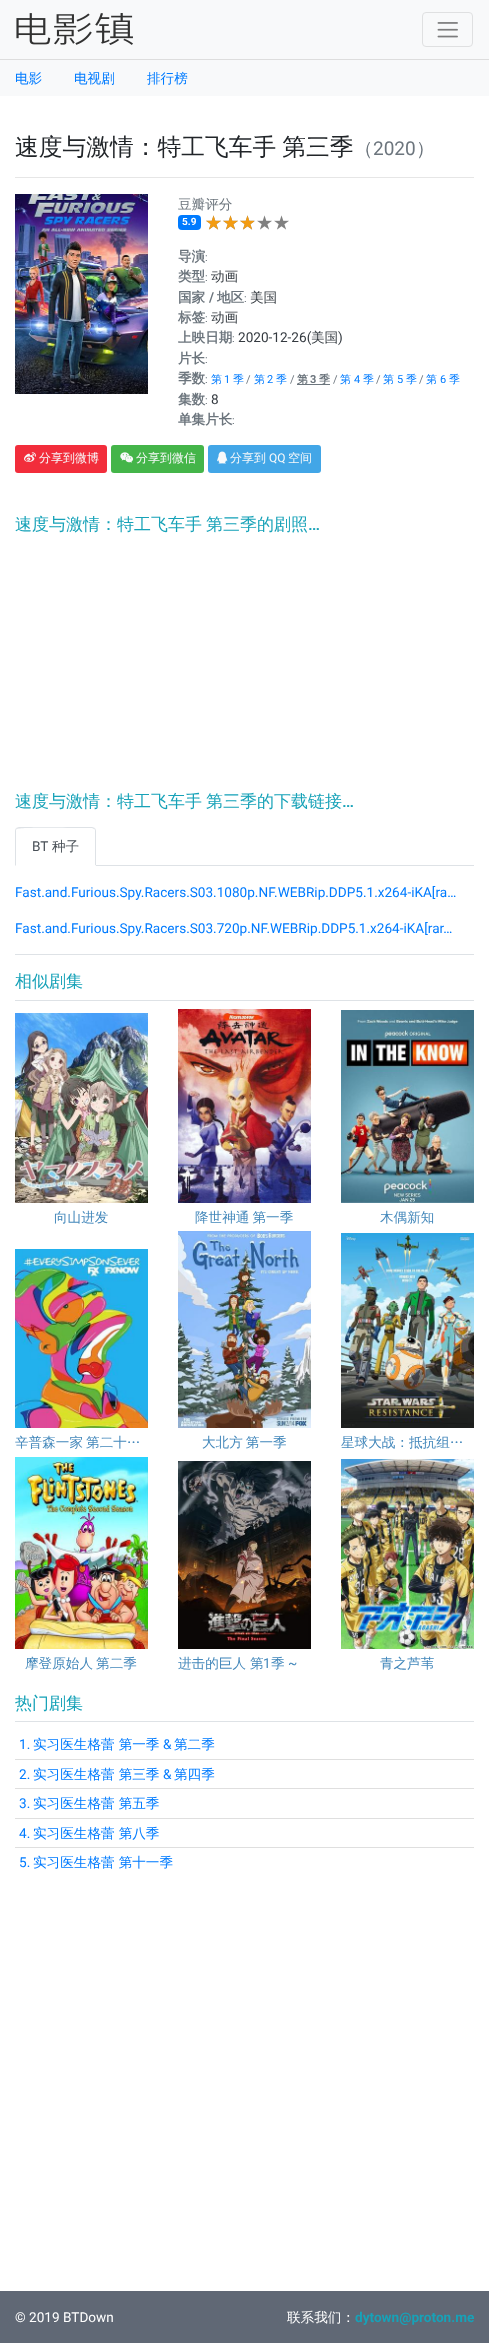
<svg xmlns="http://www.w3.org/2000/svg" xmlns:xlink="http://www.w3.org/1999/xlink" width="489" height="2343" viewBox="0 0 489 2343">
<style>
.cls-1{font:500 13.6px WenQuanYi Zen Hei;fill:#007bff}
.cls-2{font:500 23.75px WenQuanYi Zen Hei;fill:#212529}
.cls-3{font:500 19px WenQuanYi Zen Hei;fill:#6c757d}
.cls-4{font:19px Roboto;fill:#6c757d}
.cls-5{font:500 13.6px WenQuanYi Zen Hei;fill:#6c757d}
.cls-6{font:bold 10px Roboto;fill:#ffffff}
.cls-7{font:bold 13.6px WenQuanYi Zen Hei;fill:#6c757d}
.cls-8{font:11px Roboto;fill:#6c757d}
.cls-9{font:500 13.6px WenQuanYi Zen Hei;fill:#343a40}
.cls-10{font:bold 13.6px Roboto;fill:#6c757d}
.cls-11{font:13.6px Roboto;fill:#343a40}
.cls-12{font:500 11px WenQuanYi Zen Hei;fill:#007bff}
.cls-13{font:11px Roboto;fill:#007bff}
.cls-14{font:bold 11px WenQuanYi Zen Hei;fill:#6c757d}
.cls-15{font:bold 11px Roboto;fill:#6c757d}
.cls-16{font:500 12px WenQuanYi Zen Hei;fill:#f8f9fa}
.cls-17{font:12px Roboto;fill:#f8f9fa}
.cls-18{font:500 17px WenQuanYi Zen Hei;fill:#17a2b8}
.cls-19{font:500 17px Roboto;fill:#17a2b8}
.cls-20{font:13.6px Roboto;fill:#495057}
.cls-21{font:500 13.6px WenQuanYi Zen Hei;fill:#495057}
.cls-22{font:13.6px Roboto;fill:#007bff}
.cls-23{font:500 13.6px WenQuanYi Zen Hei;fill:#4488bb}
.cls-24{font:13.6px Roboto;fill:#4488bb}
.cls-25{font:13.6px Roboto;fill:#ffffff}
.cls-26{font:500 13.6px WenQuanYi Zen Hei;fill:#ffffff}
.cls-27{font:bold 13.6px Roboto;fill:#17a2b8}
</style>
<rect width="100%" height="100%" fill="#ffffff"/>
<rect fill="#f8f9fa" x="0" y="0" width="489" height="59"/>
<image xlink:href="image0.png" x="16" y="13" width="117" height="32"/>
<rect fill="none" stroke="#dfe0e1" x="422.5" y="12.5" width="50" height="34" rx="3.5"/>
<image xlink:href="image1.png" x="437" y="22" width="21" height="16"/>
<rect fill="#f8f9fa" x="0" y="60" width="489" height="36"/>
<rect fill="#dddddd" x="0" y="59" width="489" height="1"/>
<rect fill="#e6e6e6" x="15" y="177" width="459" height="1"/>
<image xlink:href="image2.png" x="15" y="194" width="133" height="200"/>
<rect fill="#007bff" x="178" y="215" width="23" height="15" rx="4"/>
<image xlink:href="image3.png" x="206" y="215" width="15" height="15"/>
<image xlink:href="image3.png" x="223" y="215" width="15" height="15"/>
<image xlink:href="image3.png" x="240" y="215" width="15" height="15"/>
<image xlink:href="image3.png" x="257" y="215" width="15" height="15"/>
<image xlink:href="image3.png" x="274" y="215" width="15" height="15"/>
<image xlink:href="image4.png" x="206" y="215" width="15" height="15"/>
<image xlink:href="image4.png" x="223" y="215" width="15" height="15"/>
<image xlink:href="image5.png" x="240" y="215" width="14" height="15"/>
<rect fill="#6c757d" x="297" y="384" width="33" height="1"/>
<rect fill="#f22d3b" x="15" y="445" width="92" height="28" rx="3"/>
<image xlink:href="image6.png" x="24" y="452" width="12" height="10"/>
<rect fill="#44b549" x="111" y="445" width="93" height="28" rx="3"/>
<image xlink:href="image7.png" x="120" y="452" width="14" height="11"/>
<rect fill="#42a6e7" x="208" y="445" width="113" height="28" rx="3"/>
<image xlink:href="image8.png" x="217" y="451" width="11" height="13"/>
<rect fill="#dee2e6" x="96" y="865" width="378" height="1"/>
<path fill="#dee2e6" d="M19 827L16 828L17 829C19 827 73 828 80 828H92L94 829L95 828L92 827Z"/>
<path fill="#dee2e6" d="M96 866V831C96 830 95.5 829 95 828L94 829C95 829 95 830 95 831V865Z"/>
<path fill="#ffffff" d="M96 866L95 865H16L15 866Z"/>
<path fill="#dee2e6" d="M15 866L16 865V831C16 830 16 829 17 829L16 828C15.5 829 15 830 15 831Z"/>
<rect fill="#dee2e6" x="15" y="954" width="459" height="1"/>
<rect fill="#dee2e6" x="15" y="1000" width="459" height="1"/>
<image xlink:href="image9.png" x="15" y="1013" width="133" height="190"/>
<image xlink:href="image10.png" x="178" y="1009" width="133" height="194"/>
<image xlink:href="image11.png" x="341" y="1010" width="133" height="193"/>
<image xlink:href="image12.png" x="15" y="1249" width="133" height="179"/>
<image xlink:href="image13.png" x="178" y="1231" width="133" height="197"/>
<image xlink:href="image14.png" x="341" y="1233" width="133" height="195"/>
<image xlink:href="image15.png" x="15" y="1457" width="133" height="192"/>
<image xlink:href="image16.png" x="178" y="1461" width="133" height="188"/>
<image xlink:href="image17.png" x="341" y="1459" width="133" height="190"/>
<rect fill="#dee2e6" x="15" y="1721" width="459" height="1"/>
<rect fill="#dfdfdf" x="15" y="1759" width="459" height="1"/>
<rect fill="#dfdfdf" x="15" y="1788" width="459" height="1"/>
<rect fill="#dfdfdf" x="15" y="1818" width="459" height="1"/>
<rect fill="#dfdfdf" x="15" y="1847" width="459" height="1"/>
<rect fill="#606875" x="0" y="2291" width="489" height="52"/>
<text class="cls-1" x="15" y="83">电影</text>
<text class="cls-1" x="74" y="83">电视剧</text>
<text class="cls-1" x="147" y="83">排行榜</text>
<text class="cls-2" x="15" y="155" word-spacing="-1">速度与激情：特工飞车手 第三季</text>
<text class="cls-3" x="354" y="155">（</text>
<text class="cls-4" x="373" y="155">2020</text>
<text class="cls-3" x="416" y="155">）</text>
<text class="cls-5" x="178" y="209">豆瓣评分</text>
<text class="cls-6" x="182" y="225">5.9</text>
<text class="cls-7" x="178" y="261">导演</text>
<text class="cls-8" x="205" y="261">:</text>
<text class="cls-7" x="178" y="281">类型</text>
<text class="cls-8" x="205" y="281">:</text>
<text class="cls-9" x="211" y="281">动画</text>
<text class="cls-7" x="178" y="302">国家</text>
<text class="cls-10" x="209" y="302">/</text>
<text class="cls-7" x="217" y="302">地区</text>
<text class="cls-8" x="244" y="302">:</text>
<text class="cls-9" x="250" y="302">美国</text>
<text class="cls-7" x="178" y="322">标签</text>
<text class="cls-8" x="205" y="322">:</text>
<text class="cls-9" x="211" y="322">动画</text>
<text class="cls-7" x="178" y="342">上映日期</text>
<text class="cls-8" x="232" y="342">:</text>
<text class="cls-11" x="238" y="342">2020-12-26(</text>
<text class="cls-9" x="311" y="342">美国</text>
<text class="cls-11" x="338" y="342">)</text>
<text class="cls-7" x="178" y="363">片长</text>
<text class="cls-8" x="205" y="363">:</text>
<text class="cls-7" x="178" y="383">季数</text>
<text class="cls-8" x="205" y="383">:</text>
<text class="cls-12" x="211" y="383">第</text>
<text class="cls-13" x="224" y="383">1</text>
<text class="cls-12" x="233" y="383">季</text>
<text class="cls-8" x="246" y="383">/</text>
<text class="cls-12" x="254" y="383">第</text>
<text class="cls-13" x="267" y="383">2</text>
<text class="cls-12" x="276" y="383">季</text>
<text class="cls-8" x="290" y="383">/</text>
<text class="cls-14" x="297" y="383">第</text>
<text class="cls-15" x="310" y="383">3</text>
<text class="cls-14" x="319" y="383">季</text>
<text class="cls-8" x="333" y="383">/</text>
<text class="cls-12" x="340" y="383">第</text>
<text class="cls-13" x="354" y="383">4</text>
<text class="cls-12" x="363" y="383">季</text>
<text class="cls-8" x="376" y="383">/</text>
<text class="cls-12" x="383" y="383">第</text>
<text class="cls-13" x="397" y="383">5</text>
<text class="cls-12" x="406" y="383">季</text>
<text class="cls-8" x="419" y="383">/</text>
<text class="cls-12" x="426" y="383">第</text>
<text class="cls-13" x="440" y="383">6</text>
<text class="cls-12" x="449" y="383">季</text>
<text class="cls-7" x="178" y="404">集数</text>
<text class="cls-8" x="205" y="404">:</text>
<text class="cls-11" x="211" y="404">8</text>
<text class="cls-7" x="178" y="424">单集片长</text>
<text class="cls-8" x="232" y="424">:</text>
<text class="cls-16" x="39" y="462">分享到微博</text>
<text class="cls-16" x="136" y="462">分享到微信</text>
<text class="cls-16" x="230" y="462">分享到</text>
<text class="cls-17" x="269" y="462">QQ</text>
<text class="cls-16" x="288" y="462">空间</text>
<text class="cls-18" x="15" y="530" word-spacing="-1">速度与激情：特工飞车手 第三季的剧照</text>
<text class="cls-19" x="308" y="530">…</text>
<text class="cls-18" x="15" y="807" word-spacing="-1">速度与激情：特工飞车手 第三季的下载链接</text>
<text class="cls-19" x="342" y="807">…</text>
<text class="cls-20" x="32" y="851">BT</text>
<text class="cls-21" x="52" y="851">种子</text>
<text class="cls-22" x="15" y="897">Fast.and.Furious.Spy.Racers.S03.1080p.NF.WEBRip.DDP5.1.x264-iKA[ra…</text>
<text class="cls-22" x="15" y="933">Fast.and.Furious.Spy.Racers.S03.720p.NF.WEBRip.DDP5.1.x264-iKA[rar…</text>
<text class="cls-18" x="15" y="987">相似剧集</text>
<text class="cls-23" x="54" y="1222">向山进发</text>
<text class="cls-23" x="195" y="1222" word-spacing="-1">降世神通 第一季</text>
<text class="cls-23" x="380" y="1222">木偶新知</text>
<text class="cls-23" x="15" y="1447" word-spacing="-1">辛普森一家 第二十…</text>
<text class="cls-23" x="202" y="1447" word-spacing="-1">大北方 第一季</text>
<text class="cls-23" x="341" y="1447" word-spacing="-1">星球大战：抵抗组…</text>
<text class="cls-23" x="25" y="1668" word-spacing="-1">摩登原始人 第二季</text>
<text class="cls-23" x="178" y="1668">进击的巨人 第</text>
<text class="cls-24" x="263" y="1668">1</text>
<text class="cls-23" x="271" y="1668">季</text>
<text class="cls-24" x="288" y="1668">~</text>
<text class="cls-23" x="380" y="1668">青之芦苇</text>
<text class="cls-18" x="15" y="1709">热门剧集</text>
<text class="cls-22" x="19" y="1749">1.</text>
<text class="cls-1" x="33" y="1749">实习医生格蕾 第一季</text>
<text class="cls-22" x="163" y="1749">&amp;</text>
<text class="cls-1" x="174" y="1749">第二季</text>
<text class="cls-22" x="19" y="1779">2.</text>
<text class="cls-1" x="33" y="1779">实习医生格蕾 第三季</text>
<text class="cls-22" x="163" y="1779">&amp;</text>
<text class="cls-1" x="174" y="1779">第四季</text>
<text class="cls-22" x="19" y="1808">3.</text>
<text class="cls-1" x="33" y="1808">实习医生格蕾 第五季</text>
<text class="cls-22" x="19" y="1838">4.</text>
<text class="cls-1" x="33" y="1838">实习医生格蕾 第八季</text>
<text class="cls-22" x="19" y="1867">5.</text>
<text class="cls-1" x="33" y="1867">实习医生格蕾 第十一季</text>
<text class="cls-25" x="15" y="2322">© 2019 BTDown</text>
<text class="cls-26" x="287" y="2322">联系我们：</text>
<text class="cls-27" x="355" y="2322">dytown@proton.me</text>
</svg>
